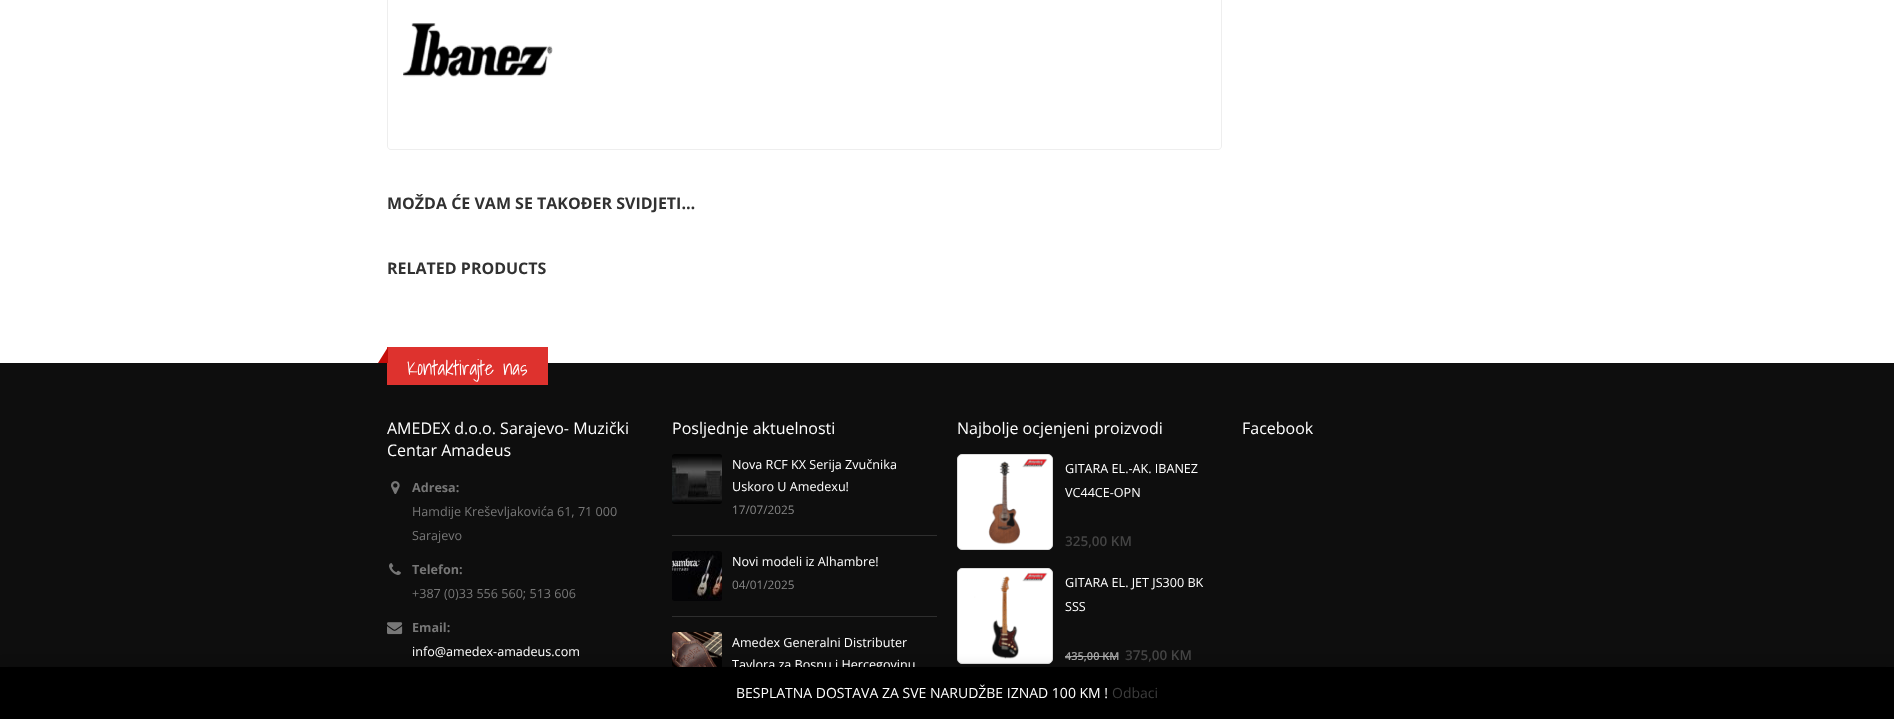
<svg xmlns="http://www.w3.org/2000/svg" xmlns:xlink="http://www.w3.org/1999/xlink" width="1894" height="719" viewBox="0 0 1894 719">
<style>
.cls-1{font:bold 16px Open Sans;fill:#313131}
.cls-2{font:300 20px Shadows Into Light;fill:#ffffff}
.cls-3{font:16px Open Sans;fill:#ffffff}
.cls-4{font:bold 12.6px Open Sans;fill:#777777}
.cls-5{font:12.6px Open Sans;fill:#777777}
.cls-6{font:12.6px Open Sans;fill:#ffffff}
.cls-7{font:11.75px Open Sans;fill:#888888}
.cls-8{font:600 13.5px Open Sans;fill:#444444}
.cls-9{font:600 11px Open Sans;fill:#a7a7a7}
.cls-10{font:14px Open Sans;fill:#ffffff}
.cls-11{font:14px Open Sans;fill:#3d3d3d}
</style>
<rect width="100%" height="100%" fill="#ffffff"/>
<path fill="#eeeeee" fill-rule="evenodd" d="M387-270H1222V146C1222 148 1220 150 1218 150H391C389 150 387 148 387 146ZM388-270H1221V146C1221 148 1220 149 1218 149H391C389 149 388 148 388 146Z"/>
<image xlink:href="image0.png" x="403" y="23" width="150" height="54"/>
<rect fill="#0e0e0e" x="0" y="363" width="1894" height="304"/>
<rect fill="#de322e" x="387" y="347" width="161" height="38"/>
<path fill="#c60d09" d="M388 347V363H378Z"/>
<image xlink:href="image1.png" x="391" y="481" width="9" height="13"/>
<image xlink:href="image2.png" x="389" y="563" width="12" height="12"/>
<image xlink:href="image3.png" x="387" y="622" width="16" height="13"/>
<image xlink:href="image4.png" x="672" y="454" width="50" height="50"/>
<rect fill="#2e2e2e" x="672" y="535" width="265" height="1"/>
<image xlink:href="image5.png" x="672" y="551" width="50" height="50"/>
<rect fill="#2e2e2e" x="672" y="616" width="265" height="1"/>
<image xlink:href="image6.png" x="672" y="632" width="50" height="35"/>
<rect fill="#ffffff" stroke="#dddddd" x="957.5" y="454.5" width="95" height="95" rx="4.5"/>
<image xlink:href="image7.png" x="988" y="458" width="60" height="87"/>
<rect fill="#ffffff" stroke="#dddddd" x="957.5" y="568.5" width="95" height="95" rx="4.5"/>
<image xlink:href="image8.png" x="974" y="572" width="74" height="87"/>
<rect fill="#a7a7a7" x="1065" y="656" width="53" height="1"/>
<rect fill="#000000" fill-opacity="0.2" filter="blur(7px)" x="0" y="668" width="1894" height="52"/>
<text class="cls-1" x="387" y="209">MOŽDA ĆE VAM SE TAKOĐER SVIDJETI…</text>
<text class="cls-1" x="387" y="274">RELATED PRODUCTS</text>
<text class="cls-2" x="407" y="375">Kontaktirajte nas</text>
<text class="cls-3"><tspan x="387" y="434">AMEDEX d.o.o. Sarajevo- Muzički</tspan><tspan x="387" y="456">Centar Amadeus</tspan></text>
<text class="cls-4" x="412" y="492">Adresa:</text>
<text class="cls-5"><tspan x="412" y="516">Hamdije Kreševljakovića 61, 71 000</tspan><tspan x="412" y="540">Sarajevo</tspan></text>
<text class="cls-4" x="412" y="574">Telefon:</text>
<text class="cls-5" x="412" y="598">+387 (0)33 556 560; 513 606</text>
<text class="cls-4" x="412" y="632">Email:</text>
<text class="cls-6" x="412" y="656">info@amedex-amadeus.com</text>
<text class="cls-3" x="672" y="434">Posljednje aktuelnosti</text>
<text class="cls-6"><tspan x="732" y="469">Nova RCF KX Serija Zvučnika</tspan><tspan x="732" y="491">Uskoro U Amedexu!</tspan></text>
<text class="cls-7" x="732" y="514">17/07/2025</text>
<text class="cls-6" x="732" y="566">Novi modeli iz Alhambre!</text>
<text class="cls-7" x="732" y="589">04/01/2025</text>
<text class="cls-6"><tspan x="732" y="647">Amedex Generalni Distributer</tspan><tspan x="732" y="669">Taylora za Bosnu i Hercegovinu</tspan></text>
<text class="cls-3" x="957" y="434">Najbolje ocjenjeni proizvodi</text>
<text class="cls-6"><tspan x="1065" y="473">GITARA EL.-AK. IBANEZ</tspan><tspan x="1065" y="497">VC44CE-OPN</tspan></text>
<text class="cls-8" x="1065" y="546">325,00 KM</text>
<text class="cls-6"><tspan x="1065" y="587">GITARA EL. JET JS300 BK</tspan><tspan x="1065" y="611">SSS</tspan></text>
<text class="cls-9" x="1065" y="660">435,00 KM</text>
<text class="cls-8" x="1125" y="660">375,00 KM</text>
<text class="cls-3" x="1242" y="434">Facebook</text>
<rect fill="#000000" x="0" y="667" width="1894" height="52"/>
<text class="cls-10" x="736" y="698">BESPLATNA DOSTAVA ZA SVE NARUDŽBE IZNAD 100 KM !</text>
<text class="cls-11" x="1112" y="698">Odbaci</text>
</svg>
